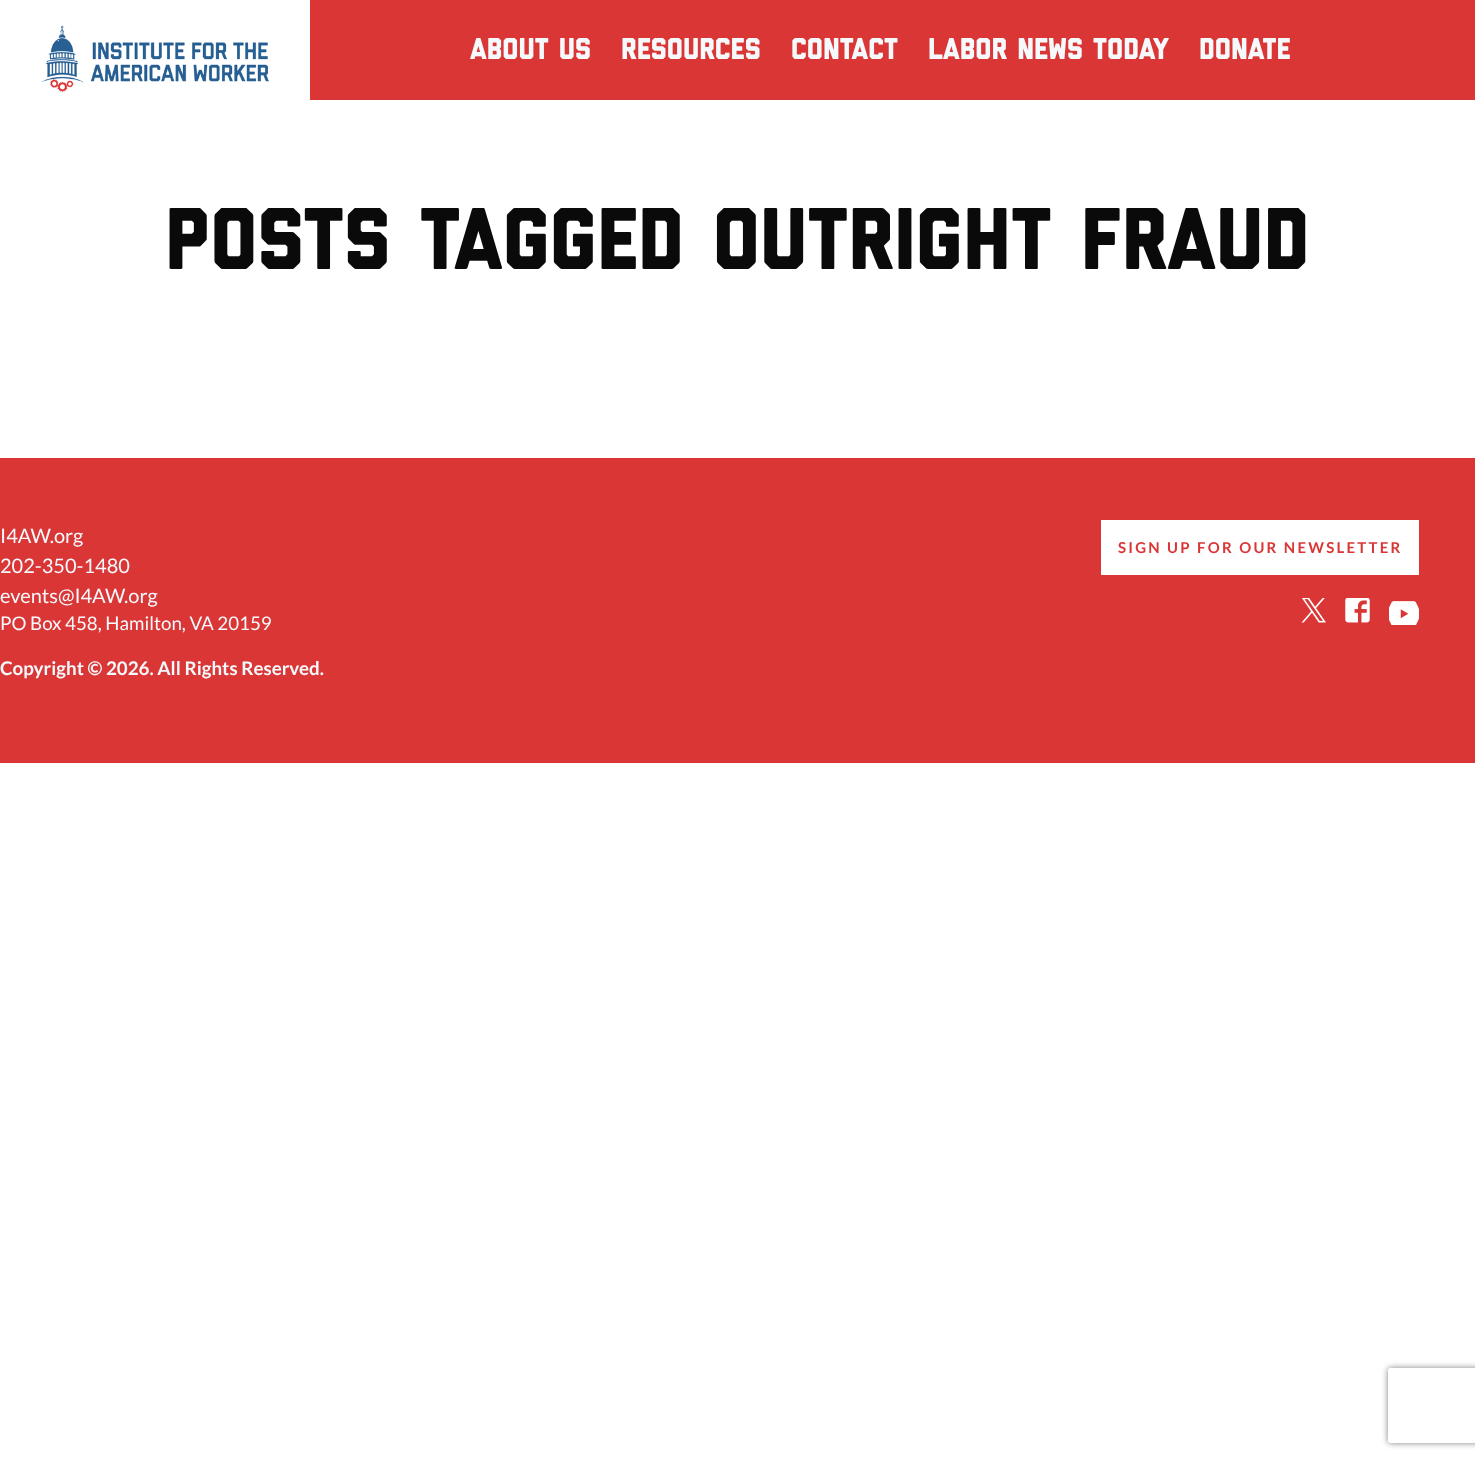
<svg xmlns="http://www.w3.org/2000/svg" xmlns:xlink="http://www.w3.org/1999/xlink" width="1475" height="1460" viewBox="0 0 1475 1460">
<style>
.cls-1{font:900 30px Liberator;fill:#f5f9fc}
.cls-2{font:900 87.5px Liberator;fill:#0a0a0a}
.cls-3{font:20px Lato;fill:#f5f9fc}
.cls-4{font:18.75px Lato;fill:#f5f9fc}
.cls-5{font:bold 18.75px Lato;fill:#f5f9fc}
.cls-6{font:bold 15px Lato;letter-spacing:2.25px;fill:#d93635}
</style>
<defs>
<clipPath id="clip1"><path d="M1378 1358H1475V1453H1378ZM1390.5 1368H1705.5C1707 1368 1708 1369 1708 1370.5V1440.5C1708 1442 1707 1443 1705.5 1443H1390.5C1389 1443 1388 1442 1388 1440.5V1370.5C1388 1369 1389 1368 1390.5 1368Z" clip-rule="evenodd"/></clipPath>
</defs>
<rect width="100%" height="100%" fill="#ffffff"/>
<rect fill="#d93635" x="310" y="0" width="1165" height="100"/>
<image xlink:href="image0.png" x="0" y="0" width="310" height="100"/>
<rect fill="#d93635" x="0" y="458" width="1475" height="305"/>
<rect fill="#ffffff" x="1101" y="520" width="318" height="55"/>
<image xlink:href="image1.png" x="1301" y="598" width="25" height="25"/>
<image xlink:href="image2.png" x="1345" y="598" width="25" height="25"/>
<image xlink:href="image3.png" x="1389" y="601" width="30" height="24"/>
<g clip-path="url(#clip1)">
<rect fill="#808080" filter="blur(3px)" x="1388" y="1368" width="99" height="75" rx="2.5"/>
</g>
<text class="cls-1" x="470" y="59">ABOUT US</text>
<text class="cls-1" x="621" y="59">RESOURCES</text>
<text class="cls-1" x="791" y="59">CONTACT</text>
<text class="cls-1" x="928" y="59">LABOR NEWS TODAY</text>
<text class="cls-1" x="1199" y="59">DONATE</text>
<text class="cls-2" x="165" y="269">Posts tagged outright fraud</text>
<text class="cls-3"><tspan x="0" y="543">I4AW.org</tspan><tspan x="0" y="573">202-350-1480</tspan><tspan x="0" y="603">events@I4AW.org</tspan></text>
<text class="cls-4" x="0" y="630">PO Box 458, Hamilton, VA 20159</text>
<text class="cls-5" x="0" y="675">Copyright © 2026. All Rights Reserved.</text>
<text class="cls-6" x="1118" y="553">SIGN UP FOR OUR NEWSLETTER</text>
</svg>
